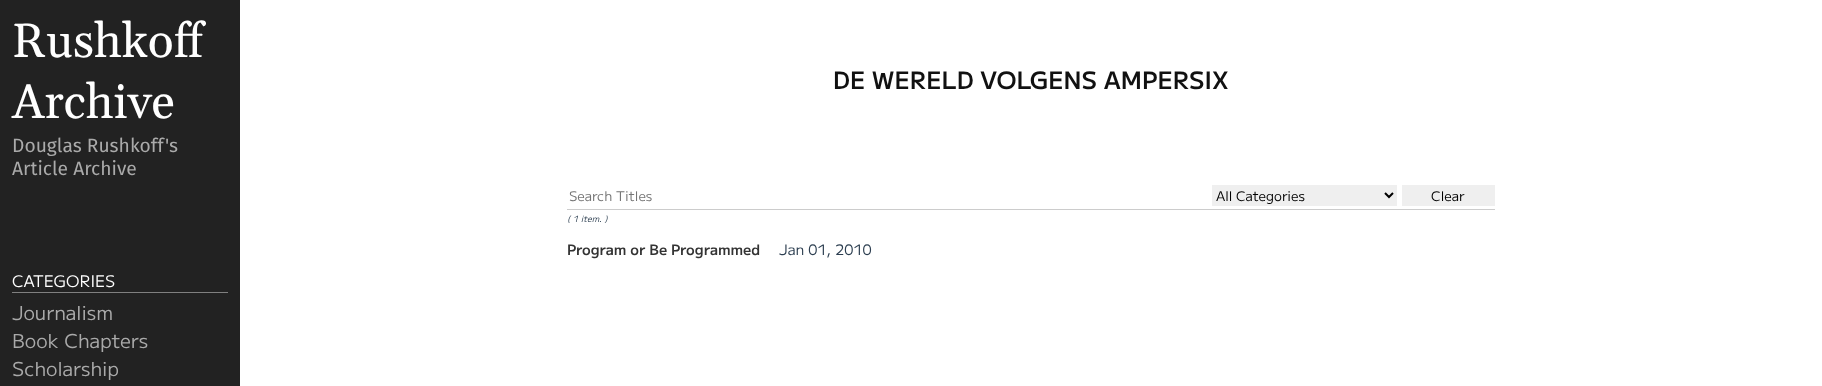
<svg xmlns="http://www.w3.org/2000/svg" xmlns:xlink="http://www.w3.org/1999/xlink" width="1822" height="386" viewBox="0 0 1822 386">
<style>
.cls-1{font:48px Gelasio;fill:#ffffff}
.cls-2{font:19.25px Fira Sans;fill:#aaaaaa}
.cls-3{font:16px 'M PLUS 1';fill:#ffffff}
.cls-4{font:19.25px 'M PLUS 1';fill:#aaaaaa}
.cls-5{font:600 24px 'M PLUS 1';fill:#111111}
.cls-6{font:13.25px 'M PLUS 1';fill:#757575}
.cls-7{font:13.25px 'M PLUS 1';fill:#000000}
.cls-8{font:italic 8.5px 'M PLUS 1';fill:#2c3e50}
.cls-9{font:600 14.4px 'M PLUS 1';fill:#333333}
.cls-10{font:14.4px 'M PLUS 1';fill:#2c3e50}
</style>
<rect width="100%" height="100%" fill="#ffffff"/>
<rect fill="#222222" x="0" y="0" width="240" height="386"/>
<rect fill="#808080" x="12" y="292" width="216" height="1"/>
<rect fill="#cccccc" x="567" y="209" width="928" height="1"/>
<rect fill="#efefef" x="1212" y="185" width="185" height="21"/>
<path fill="none" stroke="#000000" stroke-width="2" d="M1385 193L1389 197L1393 193"/>
<rect fill="#efefef" x="1402" y="185" width="93" height="21"/>
<text class="cls-1"><tspan x="12" y="57">Rushkoff</tspan><tspan x="12" y="118">Archive</tspan></text>
<text class="cls-2"><tspan x="12" y="152">Douglas Rushkoff's</tspan><tspan x="12" y="175">Article Archive</tspan></text>
<text class="cls-3" x="12" y="287">CATEGORIES</text>
<text class="cls-4"><tspan x="12" y="320">Journalism</tspan><tspan x="12" y="348">Book Chapters</tspan><tspan x="12" y="376">Scholarship</tspan></text>
<text class="cls-5" x="833" y="89">DE WERELD VOLGENS AMPERSIX</text>
<text class="cls-6" x="569" y="201">Search Titles</text>
<text class="cls-7" x="1216" y="201">All Categories</text>
<text class="cls-7" x="1431" y="201">Clear</text>
<text class="cls-8" x="567" y="222">( 1 item. )</text>
<text class="cls-9" x="567" y="255">Program or Be Programmed</text>
<text class="cls-10" x="779" y="255">Jan 01, 2010</text>
</svg>
